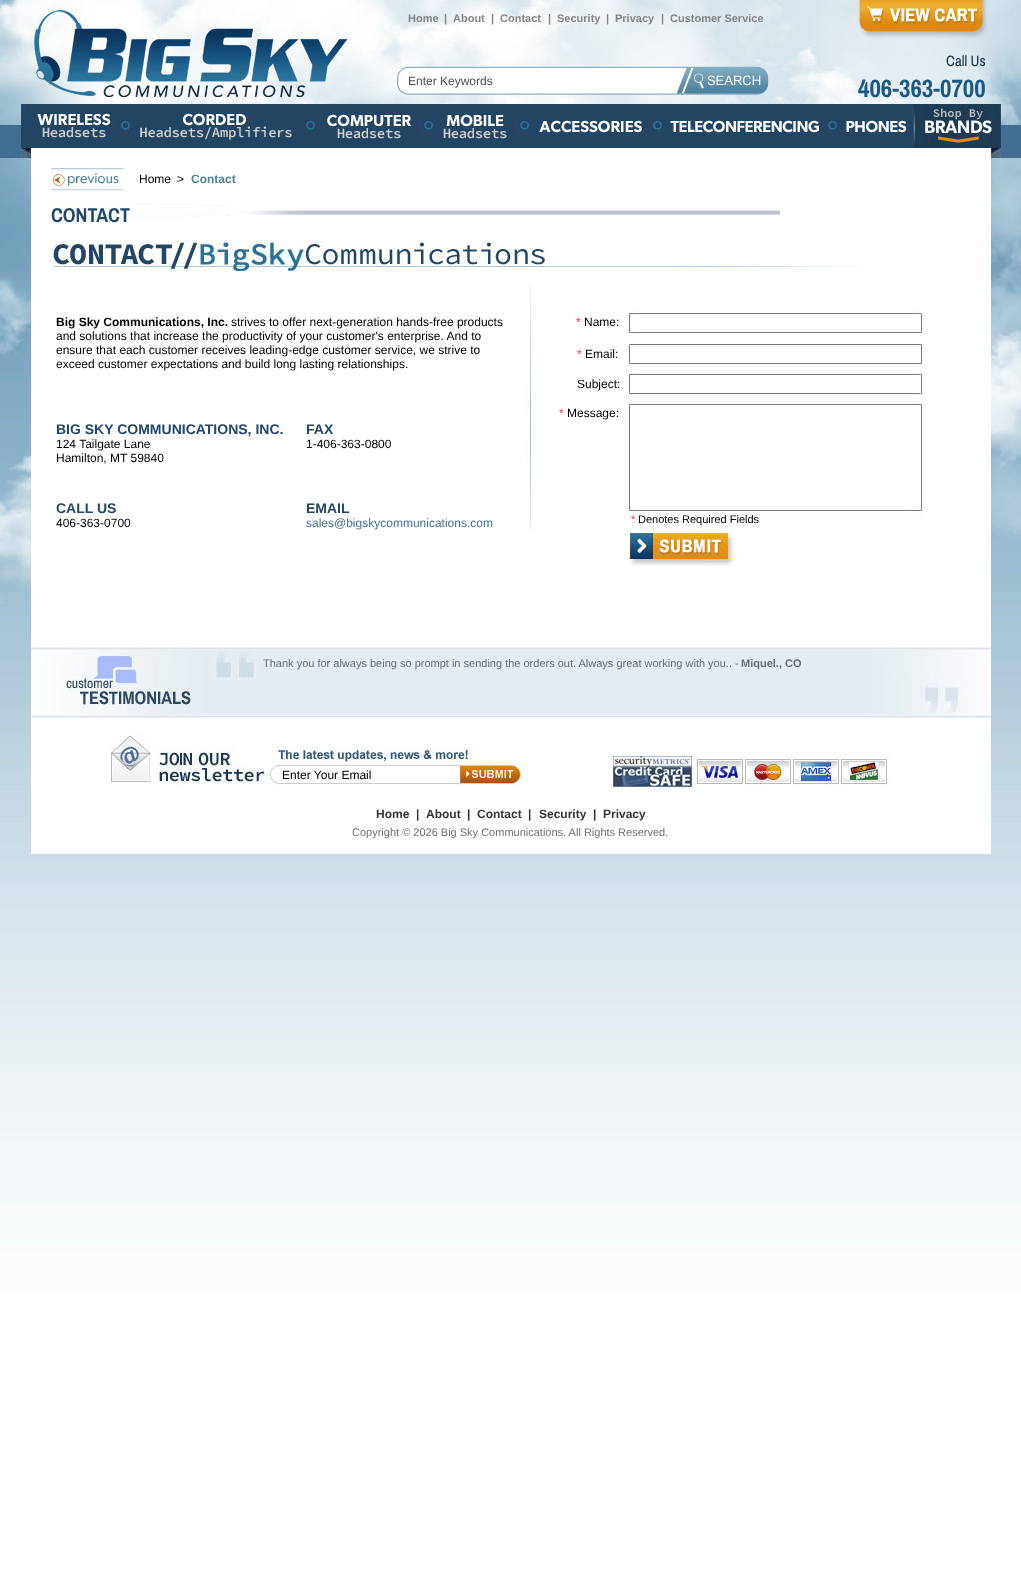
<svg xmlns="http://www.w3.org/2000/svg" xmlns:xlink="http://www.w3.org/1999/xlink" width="1021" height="1593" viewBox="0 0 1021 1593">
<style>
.cls-1{font:bold 11px Liberation Sans;fill:#868686}
.cls-2{font:12px Liberation Sans;fill:#4d4d4d}
.cls-3{font:15px Archivo Narrow;fill:#113148}
.cls-4{font:bold 25px Archivo Narrow;fill:#195985}
.cls-5{font:12px Liberation Sans;fill:#000000}
.cls-6{font:bold 12px Liberation Sans;fill:#538292}
.cls-7{font:bold 20px Archivo Narrow;fill:#234767}
.cls-8{font:bold 12px Liberation Sans;fill:#000000}
.cls-9{font:bold 14px Liberation Sans;fill:#234767}
.cls-10{font:12px Liberation Sans;fill:#497195}
.cls-11{font:12px Liberation Sans;fill:#ff3733}
.cls-12{font:11px Liberation Sans;fill:#ff3733}
.cls-13{font:11px Liberation Sans;fill:#000000}
.cls-14{font:11px Liberation Sans;fill:#6a6e72}
.cls-15{font:bold 11px Liberation Sans;fill:#6a6e72}
.cls-16{font:bold 12px Liberation Sans;fill:#353535}
.cls-17{font:11px Liberation Sans;fill:#717171}
</style>
<rect width="100%" height="100%" fill="#ffffff"/>
<image xlink:href="image0.png" x="0" y="816" width="1021" height="476"/>
<image xlink:href="image1.png" x="0" y="0" width="1021" height="816"/>
<rect fill="#436d93" x="0" y="125" width="1021" height="33"/>
<rect fill="#ffffff" x="31" y="148" width="960" height="706"/>
<image xlink:href="image2.png" x="31" y="0" width="960" height="104"/>
<rect fill="#ffffff" x="405" y="69" width="266" height="23"/>
<image xlink:href="image3.png" x="694" y="67" width="72" height="26"/>
<image xlink:href="image4.png" x="21" y="148" width="10" height="10"/>
<image xlink:href="image5.png" x="991" y="148" width="10" height="10"/>
<image xlink:href="image6.png" x="21" y="104" width="980" height="44"/>
<image xlink:href="image7.png" x="51" y="168" width="73" height="23"/>
<image xlink:href="image8.png" x="51" y="203" width="729" height="16"/>
<image xlink:href="image9.png" x="53" y="240" width="808" height="31"/>
<image xlink:href="image10.png" x="525" y="285" width="9" height="245"/>
<image xlink:href="image11.png" x="628" y="309" width="296" height="257"/>
<rect fill="#ffffff" x="631" y="315" width="289" height="15"/>
<rect fill="#ffffff" x="631" y="347" width="289" height="15"/>
<rect fill="#ffffff" x="631" y="377" width="289" height="15"/>
<rect fill="#ffffff" x="632" y="406" width="288" height="104"/>
<image xlink:href="image12.png" x="629" y="532" width="102" height="31"/>
<image xlink:href="image13.png" x="31" y="647" width="960" height="144"/>
<rect fill="#ffffff" x="455" y="767" width="4" height="15"/>
<image xlink:href="image14.png" x="459" y="764" width="62" height="21"/>
<text class="cls-1" x="408" y="22">Home</text>
<text class="cls-1" x="444" y="22">|</text>
<text class="cls-1" x="453" y="22">About</text>
<text class="cls-1" x="491" y="22">|</text>
<text class="cls-1" x="500" y="22">Contact</text>
<text class="cls-1" x="548" y="22">|</text>
<text class="cls-1" x="557" y="22">Security</text>
<text class="cls-1" x="606" y="22">|</text>
<text class="cls-1" x="615" y="22">Privacy</text>
<text class="cls-1" x="661" y="22">|</text>
<text class="cls-1" x="670" y="22">Customer Service</text>
<text class="cls-2" x="408" y="85">Enter Keywords</text>
<text class="cls-3" x="946" y="66">Call Us</text>
<text class="cls-4" x="858" y="97">406-363-0700</text>
<text class="cls-5" x="139" y="183">Home</text>
<text class="cls-5" x="177" y="183">&gt;</text>
<text class="cls-6" x="191" y="183">Contact</text>
<text class="cls-7" x="51" y="222">CONTACT</text>
<text class="cls-8" x="56" y="326">Big Sky Communications, Inc.</text>
<text class="cls-5" x="231" y="326">strives to offer next-generation hands-free products</text>
<text class="cls-5"><tspan x="56" y="340">and solutions that increase the productivity of your customer's enterprise. And to</tspan><tspan x="56" y="354">ensure that each customer receives leading-edge customer service, we strive to</tspan><tspan x="56" y="368">exceed customer expectations and build long lasting relationships.</tspan></text>
<text class="cls-9" x="56" y="434">BIG SKY COMMUNICATIONS, INC.</text>
<text class="cls-5"><tspan x="56" y="448">124 Tailgate Lane</tspan><tspan x="56" y="462">Hamilton, MT 59840</tspan></text>
<text class="cls-9" x="306" y="434">FAX</text>
<text class="cls-5" x="306" y="448">1-406-363-0800</text>
<text class="cls-9" x="56" y="513">CALL US</text>
<text class="cls-5" x="56" y="527">406-363-0700</text>
<text class="cls-9" x="306" y="513">EMAIL</text>
<text class="cls-10" x="306" y="527">sales@bigskycommunications.com</text>
<text class="cls-11" x="576" y="326">*</text>
<text class="cls-5" x="584" y="326">Name:</text>
<text class="cls-11" x="577" y="358">*</text>
<text class="cls-5" x="585" y="358">Email:</text>
<text class="cls-5" x="577" y="388">Subject:</text>
<text class="cls-11" x="559" y="417">*</text>
<text class="cls-5" x="567" y="417">Message:</text>
<text class="cls-12" x="631" y="523">*</text>
<text class="cls-13" x="638" y="523">Denotes Required Fields</text>
<text class="cls-14" x="263" y="667">Thank you for always being so prompt in sending the orders out. Always great working with you.. -</text>
<text class="cls-15" x="741" y="667">Miquel., CO</text>
<text class="cls-5" x="282" y="779">Enter Your Email</text>
<text class="cls-16" x="376" y="818">Home</text>
<text class="cls-16" x="416" y="818">|</text>
<text class="cls-16" x="426" y="818">About</text>
<text class="cls-16" x="467" y="818">|</text>
<text class="cls-16" x="477" y="818">Contact</text>
<text class="cls-16" x="528" y="818">|</text>
<text class="cls-16" x="539" y="818">Security</text>
<text class="cls-16" x="593" y="818">|</text>
<text class="cls-16" x="603" y="818">Privacy</text>
<text class="cls-17" x="352" y="836">Copyright © 2026 Big Sky Communications. All Rights Reserved.</text>
</svg>
